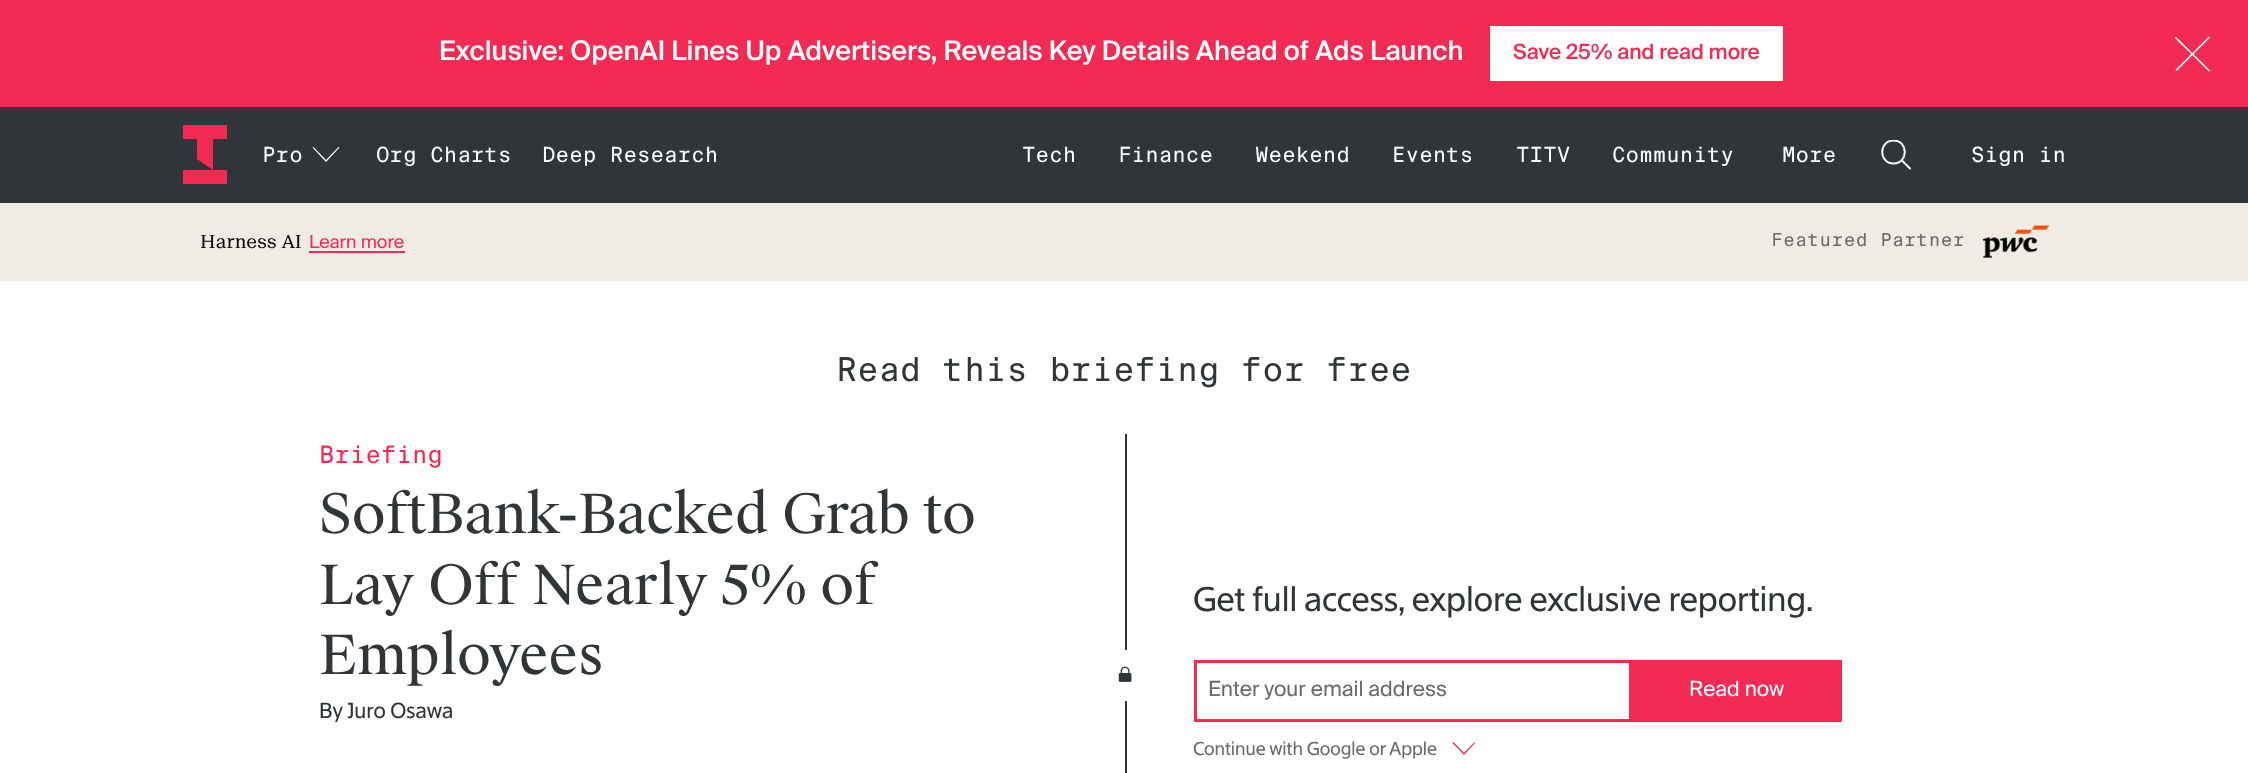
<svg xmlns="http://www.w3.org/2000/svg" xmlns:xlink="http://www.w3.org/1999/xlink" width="2248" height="773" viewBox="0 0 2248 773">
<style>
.cls-1{font:500 27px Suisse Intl;fill:#ffffff}
.cls-2{font:500 21px Suisse Intl;fill:#f32a52}
.cls-3{font:21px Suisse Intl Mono;fill:#ffffff}
.cls-4{font:18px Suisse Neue;fill:#000000}
.cls-5{font:18px Suisse Intl;fill:#f32a52}
.cls-6{font:18px Suisse Intl Mono;letter-spacing:0.5px;fill:#6d686e}
.cls-7{font:33px Suisse Intl Mono;fill:#2f3538}
.cls-8{font:24px Suisse Intl Mono;fill:#f32a52}
.cls-9{font:54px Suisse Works;fill:#2f3538}
.cls-10{font:21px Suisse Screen;fill:#2f3538}
.cls-11{font:33px Suisse Screen;fill:#2f3538}
.cls-12{font:21px Suisse Intl;fill:#6d686e}
.cls-13{font:21px Suisse Intl;fill:#ffffff}
.cls-14{font:18px Suisse Screen;fill:#6d686e}
</style>
<defs>
<clipPath id="clip1"><rect x="1881" y="140" width="30" height="30"/></clipPath>
</defs>
<rect width="100%" height="100%" fill="#ffffff"/>
<rect fill="#f32a52" x="0" y="0" width="2248" height="107"/>
<rect fill="#ffffff" x="1490" y="26" width="293" height="55"/>
<path fill="none" stroke="#ffffff" stroke-width="1.7" d="M2176 70.5L2209.5 37M2209.5 71L2175.5 37.5"/>
<rect fill="#2f3538" x="0" y="107" width="2248" height="96"/>
<path fill="#f32a52" d="M227 170H183V184H227ZM197 139V159L213 170V139H227V125H183V139Z"/>
<path fill="#ffffff" fill-rule="evenodd" d="M339.5 147.5L326 162L312.5 147.5L313.5 147L326 160L338.5 147Z"/>
<g clip-path="url(#clip1)">
<path fill="none" stroke="#ffffff" stroke-width="1.9" stroke-linecap="round" stroke-linejoin="round" d="M1902.5 161L1910 168.5M1893.5 163.5C1908.5 163.5 1908.5 140.5 1893.5 140.5C1878.5 140.5 1878.5 163.5 1893.5 163.5Z"/>
</g>
<rect fill="#f0ece5" x="0" y="203" width="2248" height="78"/>
<rect fill="#f32a52" x="309" y="251" width="96" height="2"/>
<image xlink:href="image0.png" x="1983" y="225" width="66" height="33"/>
<rect fill="#2f3538" x="1125" y="434" width="2" height="339"/>
<rect fill="#ffffff" x="1125" y="650" width="2" height="51"/>
<image xlink:href="image1.png" x="1118" y="666" width="14" height="16"/>
<rect fill="none" stroke="#f32a52" stroke-width="3" x="1195.5" y="661.5" width="435" height="59"/>
<rect fill="#f32a52" x="1632" y="660" width="210" height="62"/>
<path fill="#f32a52" fill-rule="evenodd" d="M1475 743L1464 755L1452.5 743L1453.5 742L1464 753L1474.5 742Z"/>
<text class="cls-1" x="439" y="60">Exclusive: OpenAI Lines Up Advertisers, Reveals Key Details Ahead of Ads Launch</text>
<text class="cls-2" x="1513" y="59">Save 25% and read more</text>
<text class="cls-3" x="262" y="162">Pro</text>
<text class="cls-3" x="376" y="162">Org Charts</text>
<text class="cls-3" x="542" y="162">Deep Research</text>
<text class="cls-3" x="1022" y="162">Tech</text>
<text class="cls-3" x="1118" y="162">Finance</text>
<text class="cls-3" x="1255" y="162">Weekend</text>
<text class="cls-3" x="1392" y="162">Events</text>
<text class="cls-3" x="1516" y="162">TITV</text>
<text class="cls-3" x="1612" y="162">Community</text>
<text class="cls-3" x="1782" y="162">More</text>
<text class="cls-3" x="1971" y="162">Sign in</text>
<text class="cls-4" x="200" y="248">Harness AI</text>
<text class="cls-5" x="309" y="248">Learn more</text>
<text class="cls-6" x="1771" y="246">Featured Partner</text>
<text class="cls-7" x="836" y="381">Read this briefing for free</text>
<text class="cls-8" x="319" y="463">Briefing</text>
<text class="cls-9"><tspan x="319" y="533">SoftBank-Backed Grab to</tspan><tspan x="319" y="604">Lay Off Nearly 5% of</tspan><tspan x="319" y="674">Employees</tspan></text>
<text class="cls-10" x="319" y="718">By</text>
<text class="cls-10" x="347" y="718">Juro Osawa</text>
<text class="cls-11" x="1193" y="611">Get full access, explore exclusive reporting.</text>
<text class="cls-12" x="1208" y="696">Enter your email address</text>
<text class="cls-13" x="1689" y="696">Read now</text>
<text class="cls-14" x="1193" y="755">Continue with Google or Apple</text>
</svg>
